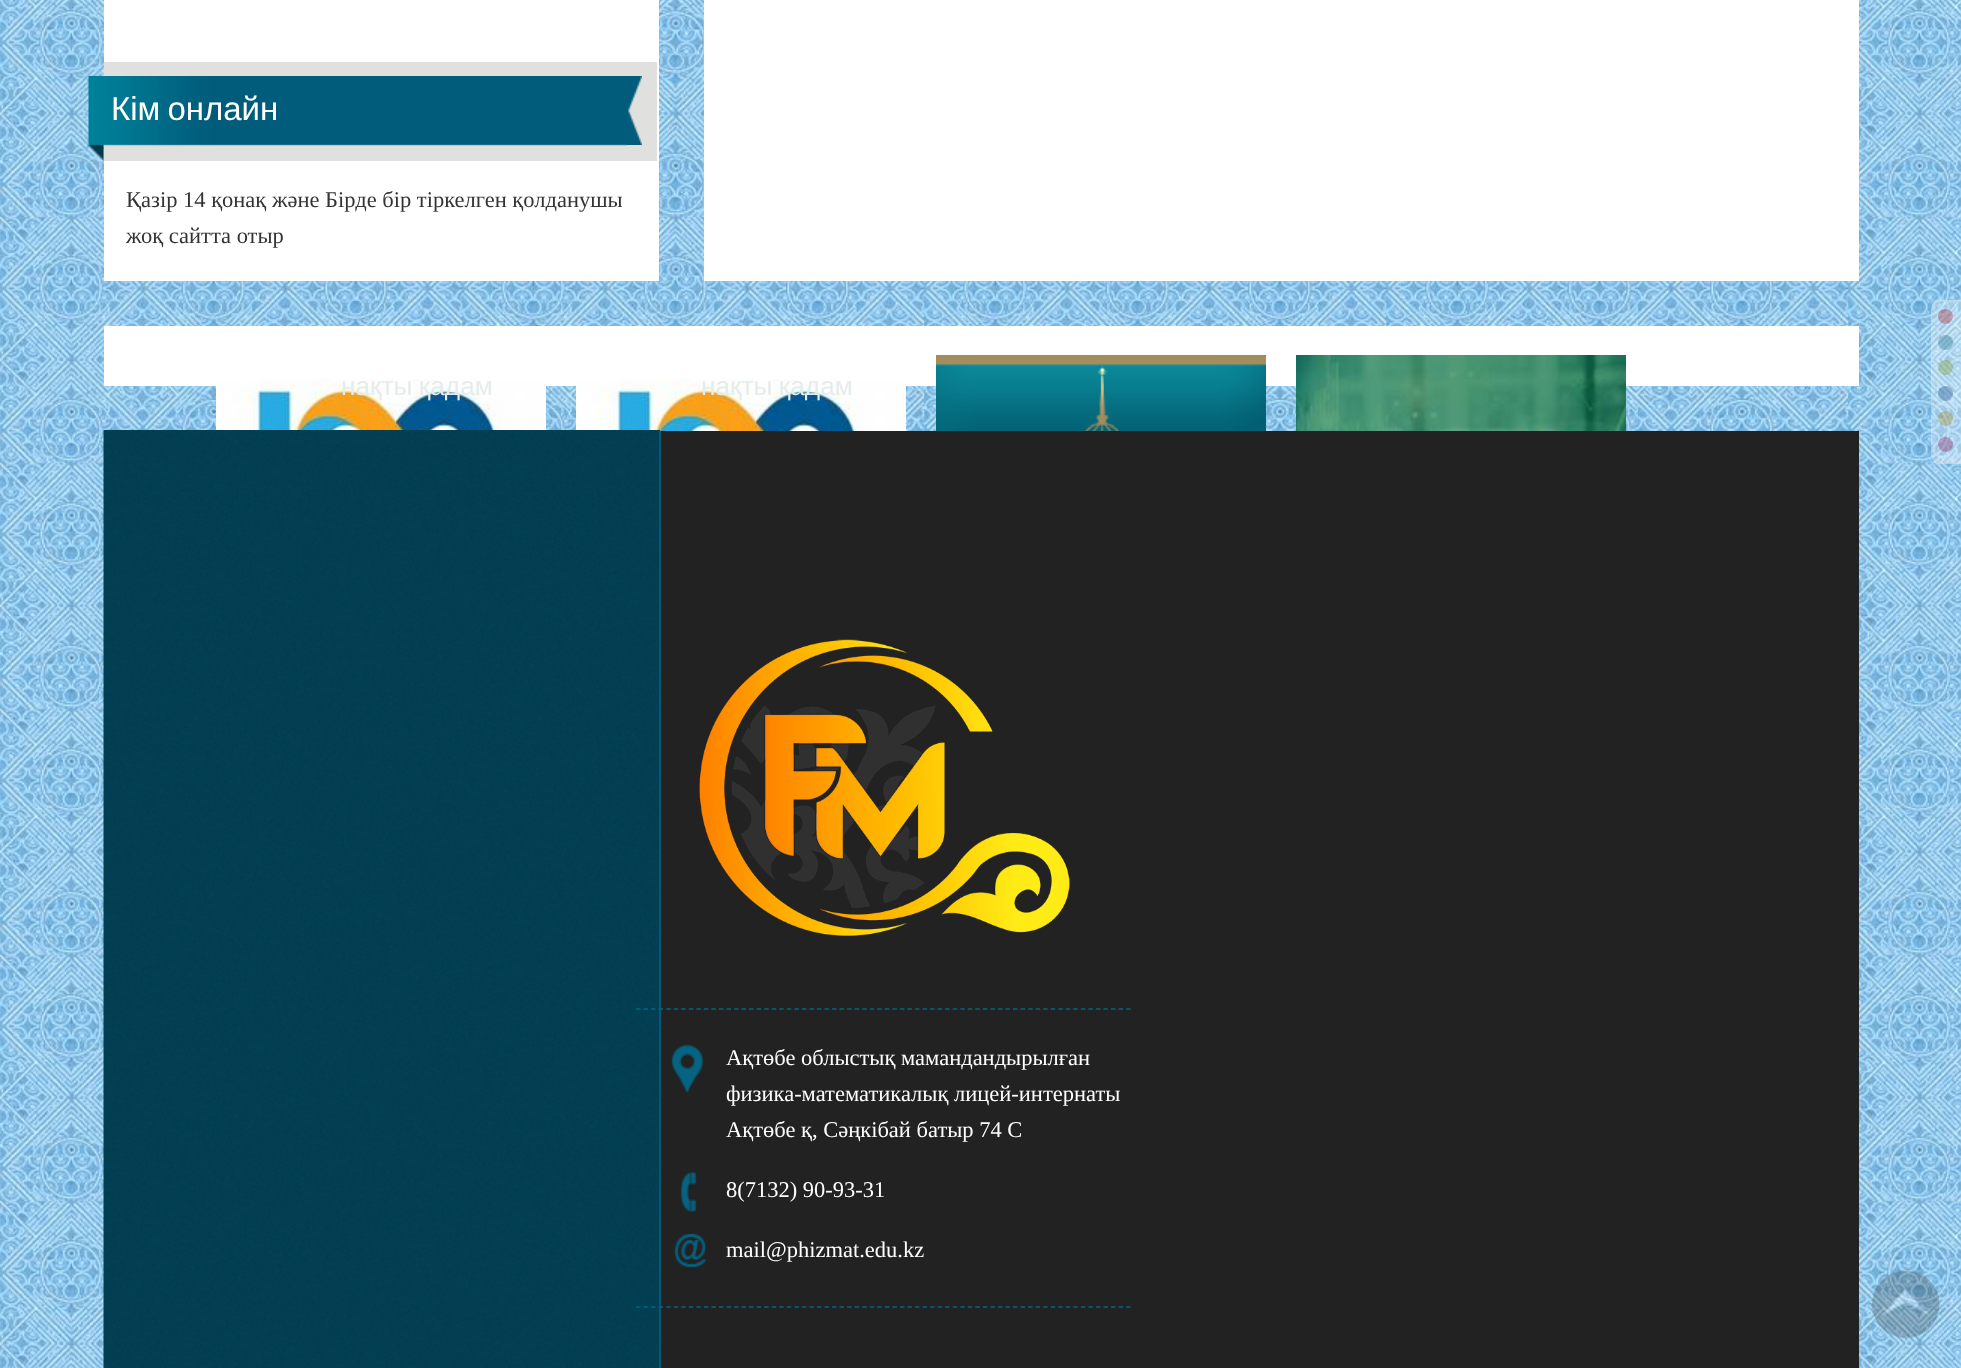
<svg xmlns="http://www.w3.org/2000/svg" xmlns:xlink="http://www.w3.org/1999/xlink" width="1961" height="1368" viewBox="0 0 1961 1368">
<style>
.cls-1{font:33px Liberation Sans;fill:#ffffff}
.cls-2{font:22.5px Liberation Serif;fill:#333333}
.cls-3{font:26.25px Liberation Sans;fill:#e6eceb}
.cls-4{font:22.5px Liberation Serif;fill:#ffffff}
</style>
<rect width="100%" height="100%" fill="#ffffff"/>
<image xlink:href="image0.png" x="0" y="0" width="1961" height="1368"/>
<rect fill="#ffffff" x="104" y="0" width="555" height="281"/>
<rect fill="#e0e0de" x="104" y="62" width="553" height="99"/>
<image xlink:href="image1.png" x="88" y="76" width="539" height="84"/>
<image xlink:href="image2.png" x="627" y="76" width="15" height="69"/>
<rect fill="#ffffff" x="704" y="0" width="1155" height="281"/>
<rect fill="#ffffff" x="104" y="326" width="1755" height="60"/>
<image xlink:href="image3.png" x="216" y="379" width="330" height="51"/>
<image xlink:href="image4.png" x="576" y="379" width="330" height="52"/>
<image xlink:href="image5.png" x="936" y="355" width="330" height="76"/>
<image xlink:href="image6.png" x="1296" y="355" width="330" height="76"/>
<rect fill="#222222" x="661" y="431" width="1198" height="937"/>
<image xlink:href="image7.png" x="103" y="430" width="557" height="938"/>
<rect fill="#065773" x="659" y="431" width="2" height="937"/>
<image xlink:href="image8.png" x="699" y="639" width="371" height="297"/>
<path fill="none" stroke="#046482" stroke-width="1.5" stroke-dasharray="4.5 3.04" d="M636 1009H1131"/>
<path fill="none" stroke="#046482" stroke-width="1.5" stroke-dasharray="4.5 3.04" d="M636 1307H1131"/>
<image xlink:href="image9.png" x="671" y="1044" width="33" height="50"/>
<image xlink:href="image10.png" x="680" y="1172" width="17" height="40"/>
<image xlink:href="image11.png" x="674" y="1233" width="33" height="35"/>
<image xlink:href="image12.png" x="1872" y="1270" width="68" height="69"/>
<path fill="#ffffff" fill-opacity="0.3" d="M1940 300H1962V464H1940C1935 464 1931 460 1931 455V309C1931 304 1935 300 1940 300Z"/>
<rect fill="#dcdcdc" fill-opacity="0.3" x="1935" y="300" width="26" height="2"/>
<rect fill="#dcdcdc" fill-opacity="0.3" x="1935" y="462" width="26" height="2"/>
<circle fill="#990000" fill-opacity="0.3" cx="1945.5" cy="316.5" r="7.5"/>
<circle fill="#005c7a" fill-opacity="0.3" cx="1945.5" cy="342.5" r="7.5"/>
<circle fill="#678900" fill-opacity="0.3" cx="1945.5" cy="367.5" r="7.5"/>
<circle fill="#00337a" fill-opacity="0.3" cx="1945.5" cy="393.5" r="7.5"/>
<circle fill="#987a00" fill-opacity="0.3" cx="1945.5" cy="418.5" r="7.5"/>
<circle fill="#81004b" fill-opacity="0.3" cx="1945.5" cy="444.5" r="7.5"/>
<text class="cls-1" x="111" y="120" word-spacing="-2">Кім онлайн</text>
<text class="cls-2"><tspan x="126" y="207">Қазір 14 қонақ және Бірде бір тіркелген қолданушы</tspan><tspan x="126" y="243">жоқ сайтта отыр</tspan></text>
<text class="cls-3" x="341" y="395" word-spacing="-1">нақты қадам</text>
<text class="cls-3" x="701" y="395" word-spacing="-1">нақты қадам</text>
<text class="cls-4"><tspan x="726" y="1065">Ақтөбе облыстық мамандандырылған</tspan><tspan x="726" y="1101">физика-математикалық лицей-интернаты</tspan><tspan x="726" y="1137">Ақтөбе қ, Cәңкібай батыр 74 C</tspan></text>
<text class="cls-4" x="726" y="1197">8(7132) 90-93-31</text>
<text class="cls-4" x="726" y="1257">mail@phizmat.edu.kz</text>
</svg>
